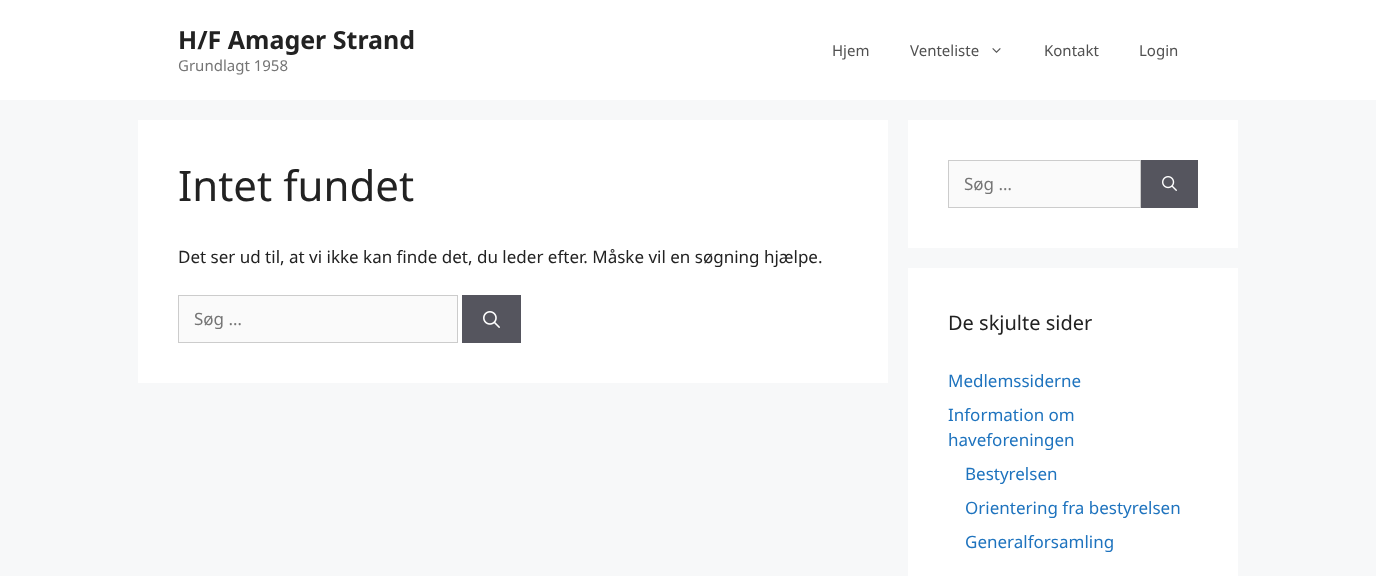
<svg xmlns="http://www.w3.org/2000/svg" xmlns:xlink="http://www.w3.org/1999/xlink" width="1376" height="576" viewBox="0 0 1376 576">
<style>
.cls-1{font:bold 25px Noto Sans;fill:#222222}
.cls-2{font:15px Noto Sans;fill:#757575}
.cls-3{font:15px Noto Sans;fill:#515151}
.cls-4{font:42px Noto Sans;fill:#222222}
.cls-5{font:17px Noto Sans;fill:#222222}
.cls-6{font:17px Noto Sans;fill:#757575}
.cls-7{font:20px Noto Sans;fill:#222222}
.cls-8{font:17px Noto Sans;fill:#1e73be}
</style>
<rect width="100%" height="100%" fill="#f7f8f9"/>
<rect fill="#ffffff" x="0" y="0" width="1376" height="100"/>
<image xlink:href="image0.png" x="992" y="48" width="9" height="5"/>
<rect fill="#ffffff" x="138" y="120" width="750" height="263"/>
<rect fill="#fafafa" stroke="#cccccc" x="178.5" y="295.5" width="279" height="47"/>
<rect fill="#55555e" x="462" y="295" width="59" height="48"/>
<image xlink:href="image1.png" x="483" y="311" width="17" height="17"/>
<rect fill="#ffffff" x="908" y="120" width="330" height="128"/>
<rect fill="#fafafa" stroke="#cccccc" x="948.5" y="160.5" width="192" height="47"/>
<rect fill="#55555e" x="1141" y="160" width="57" height="48"/>
<image xlink:href="image2.png" x="1162" y="176" width="15" height="15"/>
<rect fill="#ffffff" x="908" y="268" width="330" height="308"/>
<text class="cls-1" x="178" y="49">H/F Amager Strand</text>
<text class="cls-2" x="178" y="71">Grundlagt 1958</text>
<text class="cls-3" x="832" y="56">Hjem</text>
<text class="cls-3" x="910" y="56">Venteliste</text>
<text class="cls-3" x="1044" y="56">Kontakt</text>
<text class="cls-3" x="1139" y="56">Login</text>
<text class="cls-4" x="178" y="201">Intet fundet</text>
<text class="cls-5" x="178" y="263">Det ser ud til, at vi ikke kan finde det, du leder efter. Måske vil en søgning hjælpe.</text>
<text class="cls-6" x="194" y="325">Søg …</text>
<text class="cls-6" x="964" y="190">Søg …</text>
<text class="cls-7" x="948" y="330">De skjulte sider</text>
<text class="cls-8" x="948" y="387">Medlemssiderne</text>
<text class="cls-8"><tspan x="948" y="421">Information om</tspan><tspan x="948" y="446">haveforeningen</tspan></text>
<text class="cls-8" x="965" y="480">Bestyrelsen</text>
<text class="cls-8" x="965" y="514">Orientering fra bestyrelsen</text>
<text class="cls-8" x="965" y="548">Generalforsamling</text>
</svg>
